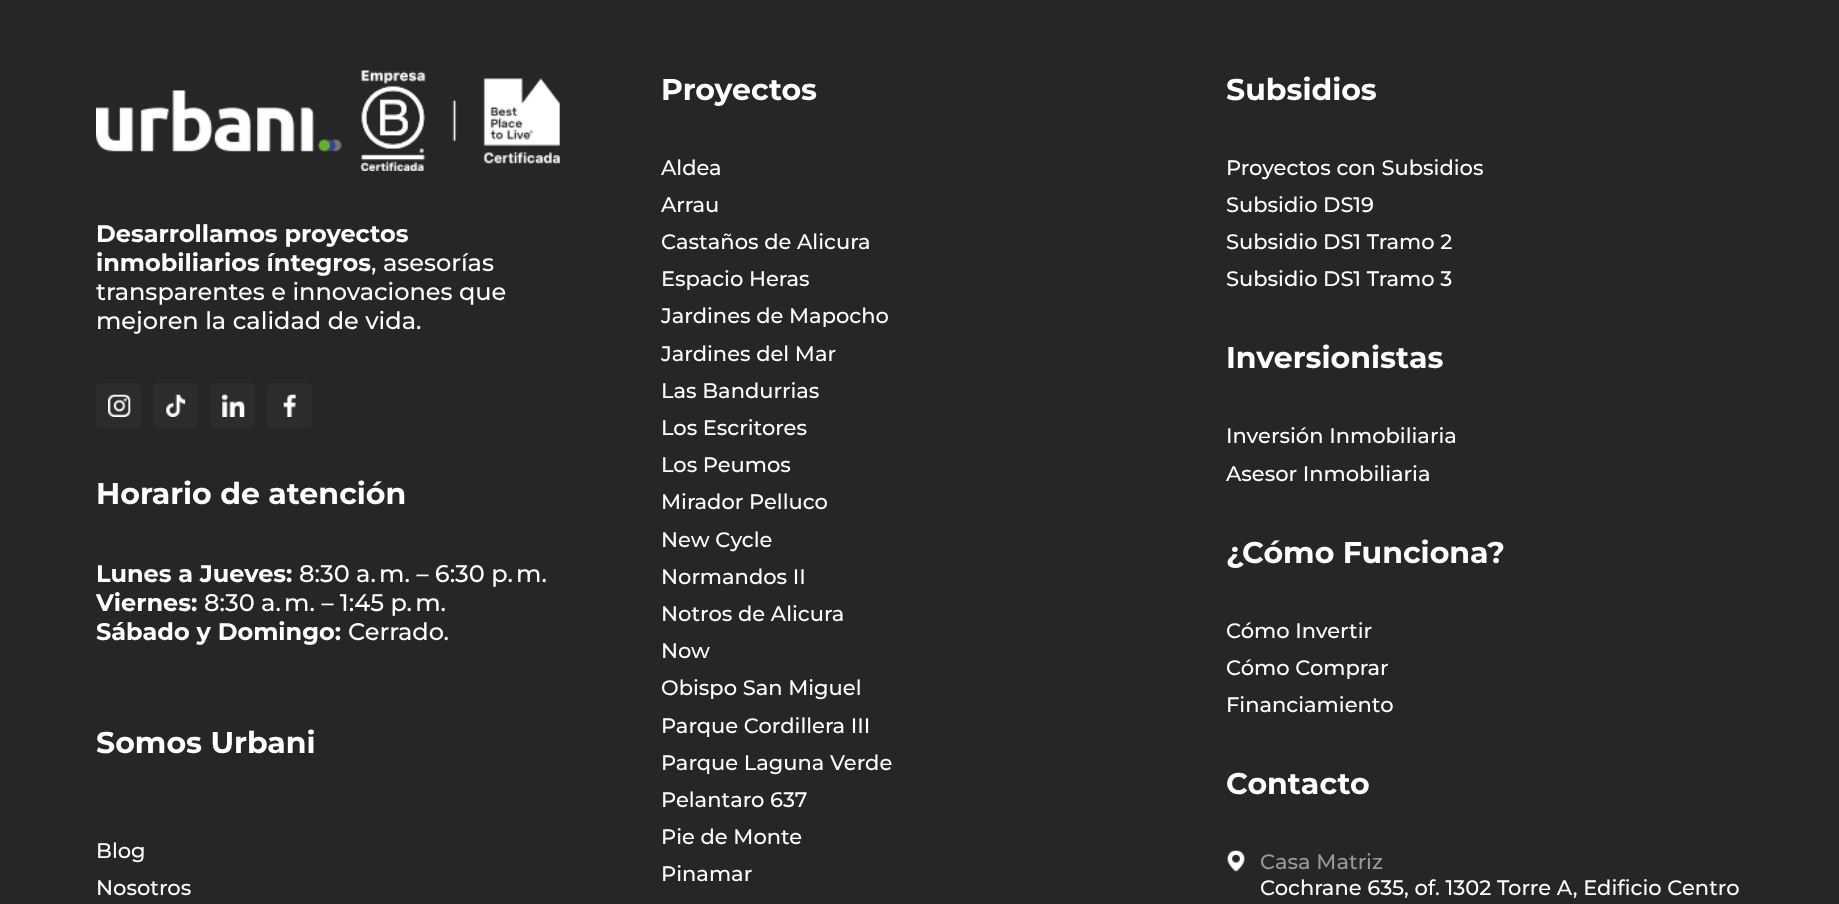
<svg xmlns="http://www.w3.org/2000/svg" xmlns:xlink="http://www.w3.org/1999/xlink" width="1839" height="904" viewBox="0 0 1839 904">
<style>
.cls-1{font:bold 24px Montserrat;fill:#ffffff}
.cls-2{font:500 24px Montserrat;fill:#ffffff}
.cls-3{font:bold 30px Montserrat;fill:#ffffff}
.cls-4{font:500 21px Montserrat;fill:#ffffff}
.cls-5{font:500 21px Montserrat;fill:#999999}
</style>
<rect width="100%" height="100%" fill="#262626"/>
<image xlink:href="image0.png" x="96" y="70" width="464" height="101"/>
<rect fill="#2c2c2c" x="96" y="383" width="45" height="45" rx="5"/>
<image xlink:href="image1.png" x="108" y="394" width="23" height="23"/>
<rect fill="#2c2c2c" x="153" y="383" width="45" height="45" rx="5"/>
<image xlink:href="image2.png" x="166" y="394" width="20" height="23"/>
<rect fill="#2c2c2c" x="210" y="383" width="45" height="45" rx="5"/>
<image xlink:href="image3.png" x="222" y="394" width="23" height="23"/>
<rect fill="#2c2c2c" x="267" y="383" width="45" height="45" rx="5"/>
<image xlink:href="image4.png" x="283" y="394" width="13" height="23"/>
<image xlink:href="image5.png" x="1227" y="850" width="18" height="22"/>
<text class="cls-1"><tspan x="96" y="242">Desarrollamos proyectos</tspan><tspan x="96" y="271">inmobiliarios íntegros</tspan></text>
<text class="cls-2" x="371" y="271">, asesorías</text>
<text class="cls-2"><tspan x="96" y="300">transparentes e innovaciones que</tspan><tspan x="96" y="329">mejoren la calidad de vida.</tspan></text>
<text class="cls-3" x="96" y="504">Horario de atención</text>
<text class="cls-1" x="96" y="582">Lunes a Jueves:</text>
<text class="cls-2" x="299" y="582">8:30 a. m. – 6:30 p. m.</text>
<text class="cls-1" x="96" y="611">Viernes:</text>
<text class="cls-2" x="204" y="611">8:30 a. m. – 1:45 p. m.</text>
<text class="cls-1" x="96" y="640">Sábado y Domingo:</text>
<text class="cls-2" x="348" y="640">Cerrado.</text>
<text class="cls-3" x="96" y="753">Somos Urbani</text>
<text class="cls-4"><tspan x="96" y="858">Blog</tspan><tspan x="96" y="895">Nosotros</tspan></text>
<text class="cls-3" x="661" y="100">Proyectos</text>
<text class="cls-4"><tspan x="661" y="175">Aldea</tspan><tspan x="661" y="212">Arrau</tspan><tspan x="661" y="249">Castaños de Alicura</tspan><tspan x="661" y="286">Espacio Heras</tspan><tspan x="661" y="323">Jardines de Mapocho</tspan><tspan x="661" y="361">Jardines del Mar</tspan><tspan x="661" y="398">Las Bandurrias</tspan><tspan x="661" y="435">Los Escritores</tspan><tspan x="661" y="472">Los Peumos</tspan><tspan x="661" y="509">Mirador Pelluco</tspan><tspan x="661" y="547">New Cycle</tspan><tspan x="661" y="584">Normandos II</tspan><tspan x="661" y="621">Notros de Alicura</tspan><tspan x="661" y="658">Now</tspan><tspan x="661" y="695">Obispo San Miguel</tspan><tspan x="661" y="733">Parque Cordillera III</tspan><tspan x="661" y="770">Parque Laguna Verde</tspan><tspan x="661" y="807">Pelantaro 637</tspan><tspan x="661" y="844">Pie de Monte</tspan><tspan x="661" y="881">Pinamar</tspan></text>
<text class="cls-3" x="1226" y="100">Subsidios</text>
<text class="cls-4"><tspan x="1226" y="175">Proyectos con Subsidios</tspan><tspan x="1226" y="212">Subsidio DS19</tspan><tspan x="1226" y="249">Subsidio DS1 Tramo 2</tspan><tspan x="1226" y="286">Subsidio DS1 Tramo 3</tspan></text>
<text class="cls-3" x="1226" y="368">Inversionistas</text>
<text class="cls-4"><tspan x="1226" y="443">Inversión Inmobiliaria</tspan><tspan x="1226" y="481">Asesor Inmobiliaria</tspan></text>
<text class="cls-3" x="1226" y="563">¿Cómo Funciona?</text>
<text class="cls-4"><tspan x="1226" y="638">Cómo Invertir</tspan><tspan x="1226" y="675">Cómo Comprar</tspan><tspan x="1226" y="712">Financiamiento</tspan></text>
<text class="cls-3" x="1226" y="794">Contacto</text>
<text class="cls-5" x="1260" y="869">Casa Matriz</text>
<text class="cls-4" x="1260" y="895">Cochrane 635, of. 1302 Torre A, Edificio Centro</text>
</svg>
